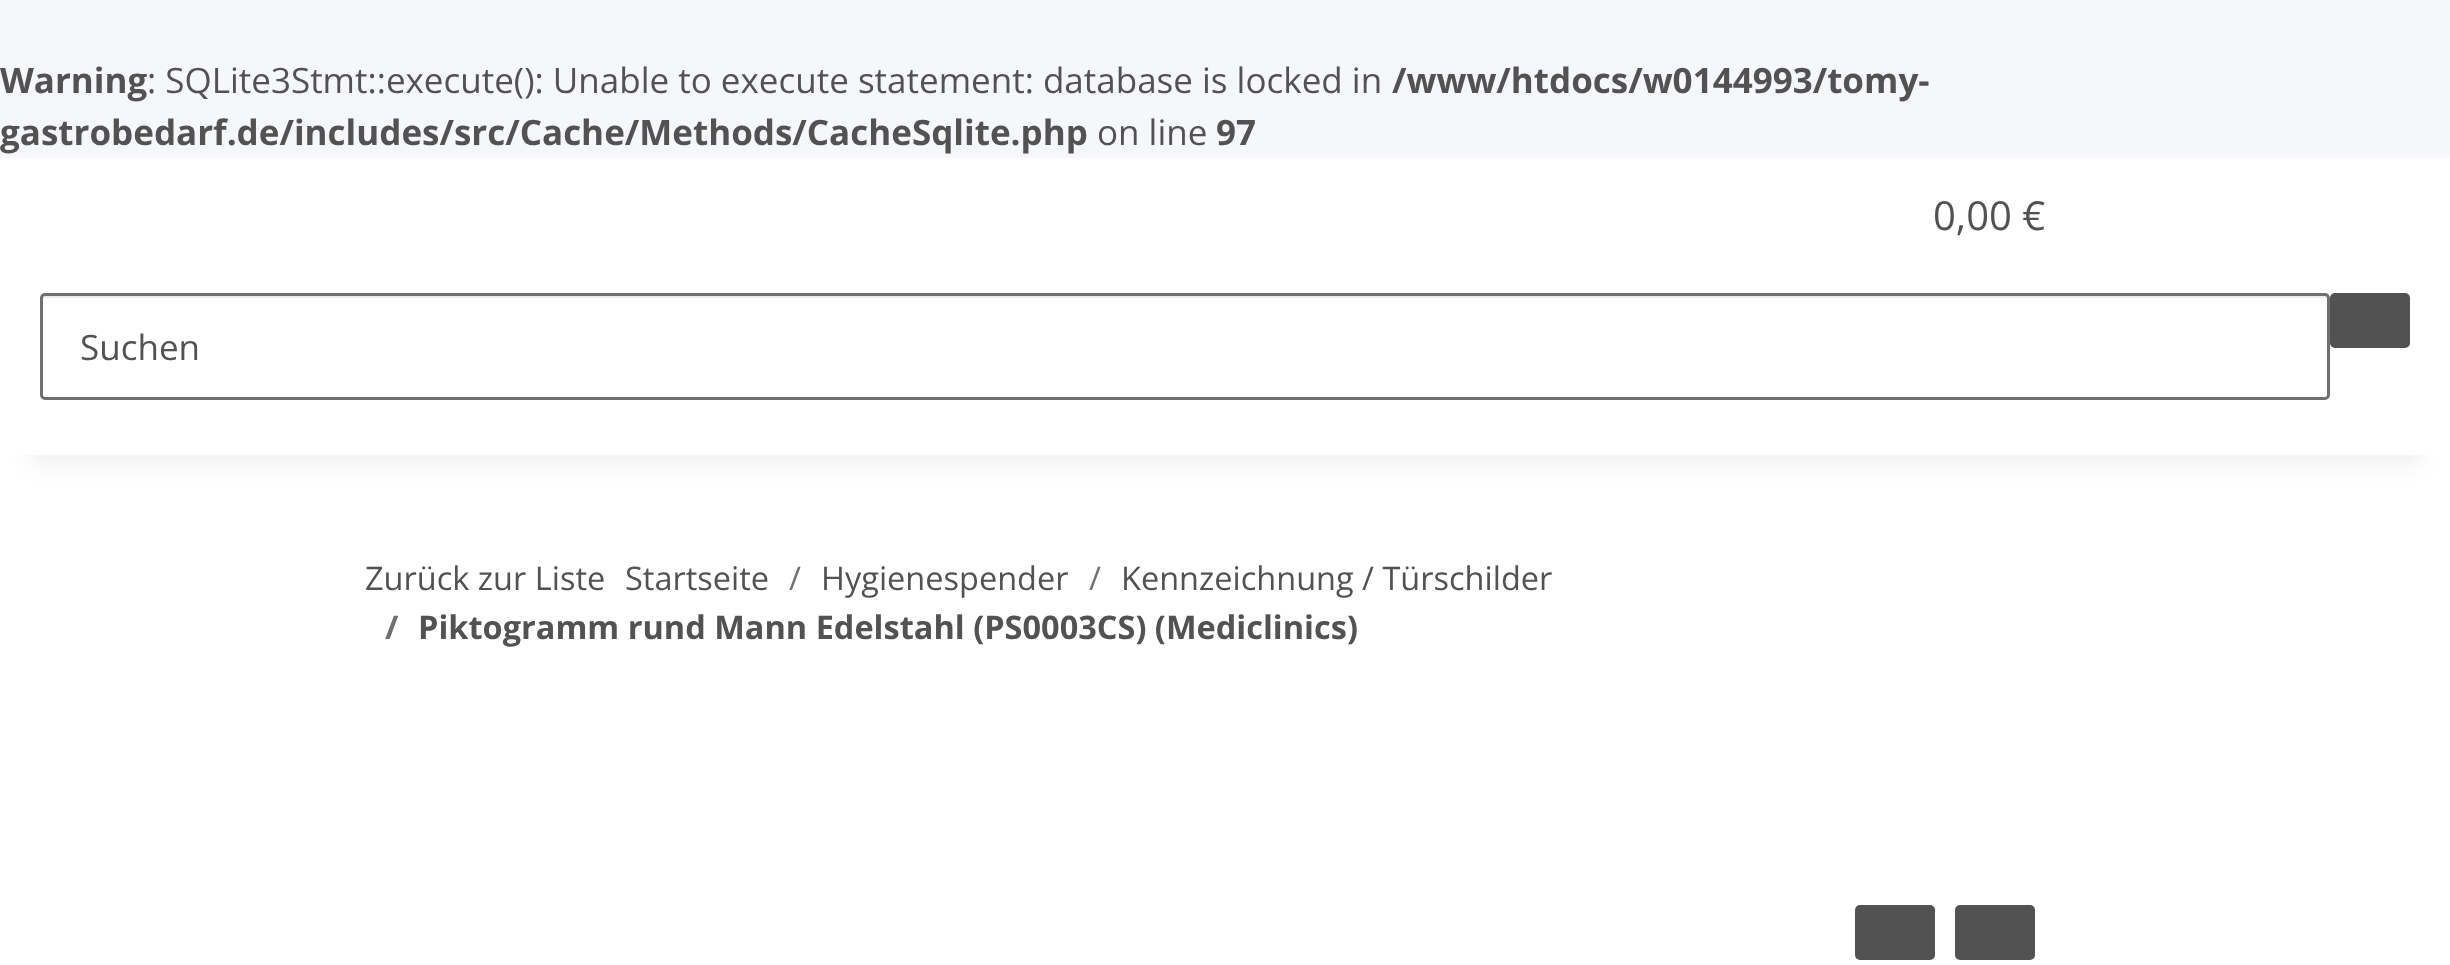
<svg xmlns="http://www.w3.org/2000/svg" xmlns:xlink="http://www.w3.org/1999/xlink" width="2450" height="965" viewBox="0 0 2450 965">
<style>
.cls-1{font:bold 35px Open Sans;fill:#525252}
.cls-2{font:35px Open Sans;fill:#525252}
.cls-3{font:40px Open Sans;fill:#525252}
.cls-4{font:32.5px Open Sans;fill:#525252}
.cls-5{font:32.5px Open Sans;fill:#707070}
.cls-6{font:bold 32.5px Open Sans;fill:#707070}
.cls-7{font:bold 32.5px Open Sans;fill:#525252}
</style>
<rect width="100%" height="100%" fill="#f5f7fa"/>
<rect fill="#ffffff" x="0" y="455" width="2450" height="510"/>
<rect fill="#000000" fill-opacity="0.06" filter="blur(11px)" x="30" y="228" width="2390" height="237"/>
<rect fill="#ffffff" x="0" y="158" width="2450" height="297"/>
<path fill="#ececec" d="M45 298H2325C2326 298 2328 299 2328 300V298C2328 296 2327 295 2326 295H46C44 295 43 296 43 298V299Z"/>
<rect fill="none" stroke="#707070" stroke-width="3" x="41.5" y="294.5" width="2287" height="104" rx="3.5"/>
<rect fill="#525252" x="2330" y="293" width="80" height="55" rx="5"/>
<rect fill="#525252" x="1855" y="905" width="80" height="55" rx="5"/>
<rect fill="#525252" x="1955" y="905" width="80" height="55" rx="5"/>
<text class="cls-1" x="0" y="93">Warning</text>
<text class="cls-2" x="147" y="93">: SQLite3Stmt::execute(): Unable to execute statement: database is locked in</text>
<text class="cls-1" x="1392" y="93">/www/htdocs/w0144993/tomy-</text>
<text class="cls-1" x="0" y="145">gastrobedarf.de/includes/src/Cache/Methods/CacheSqlite.php</text>
<text class="cls-2" x="1097" y="145">on line</text>
<text class="cls-1" x="1216" y="145">97</text>
<text class="cls-3" x="1933" y="230">0,00 €</text>
<text class="cls-2" x="80" y="360">Suchen</text>
<text class="cls-4" x="365" y="590">Zurück zur Liste</text>
<text class="cls-4" x="625" y="590">Startseite</text>
<text class="cls-5" x="789" y="590">/</text>
<text class="cls-4" x="821" y="590">Hygienespender</text>
<text class="cls-5" x="1089" y="590">/</text>
<text class="cls-4" x="1121" y="590">Kennzeichnung / Türschilder</text>
<text class="cls-6" x="385" y="639">/</text>
<text class="cls-7" x="418" y="639">Piktogramm rund Mann Edelstahl (PS0003CS) (Mediclinics)</text>
</svg>
